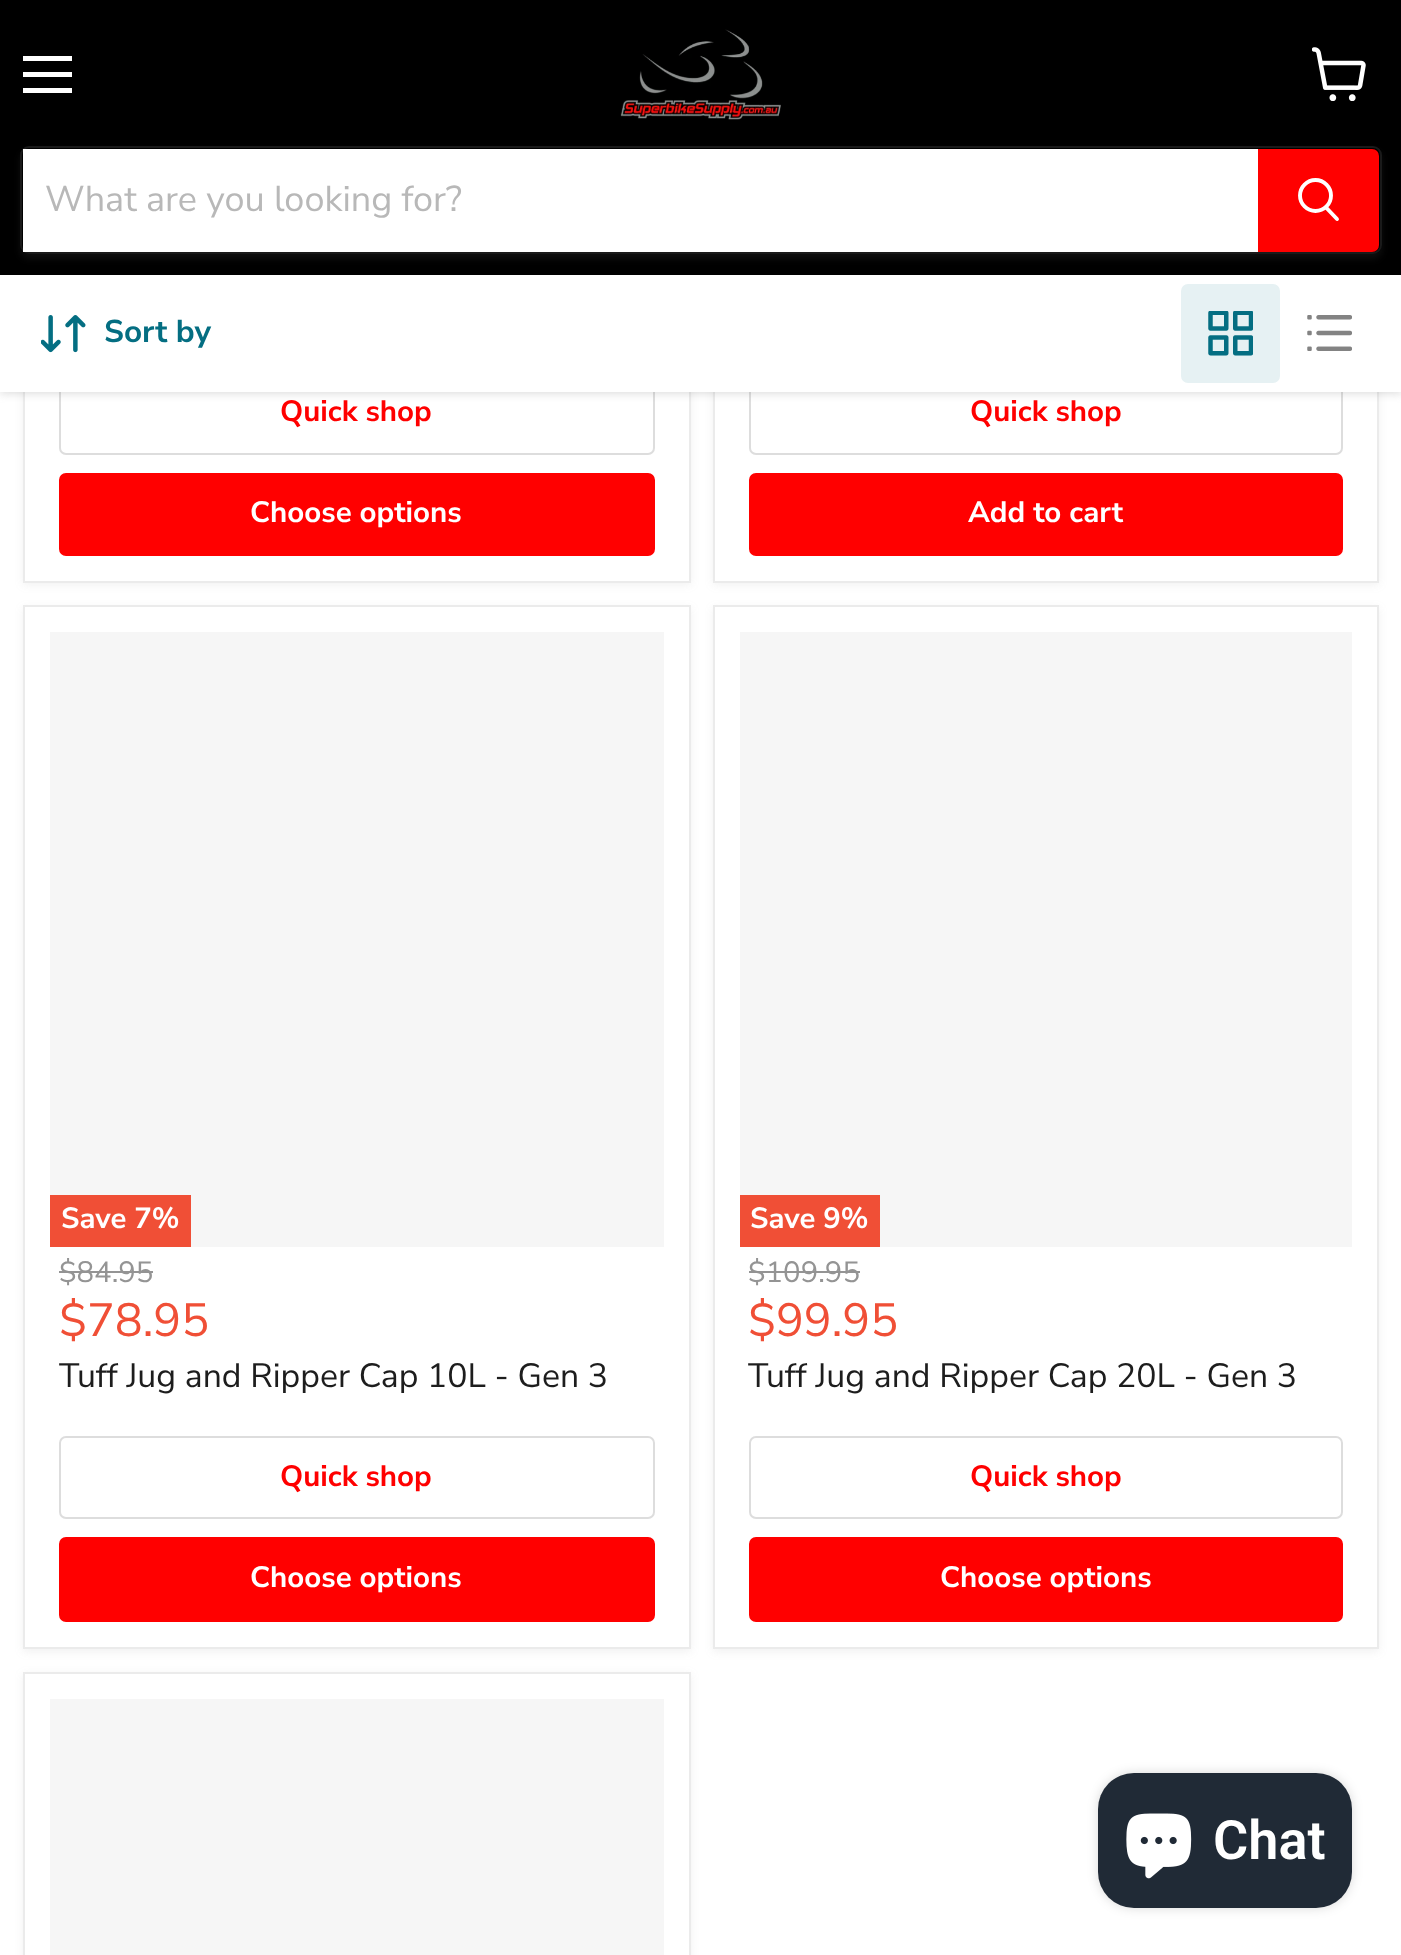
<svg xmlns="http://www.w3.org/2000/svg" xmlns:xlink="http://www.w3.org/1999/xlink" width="1401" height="1955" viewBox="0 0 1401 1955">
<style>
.cls-1{font:36px Nunito Sans;fill:#b8b8b8}
.cls-2{font:bold 31.5px Nunito Sans;fill:#046e82}
.cls-3{font:bold 29.5px Nunito Sans;fill:#ff0000}
.cls-4{font:bold 29.5px Nunito Sans;fill:#ffffff}
.cls-5{font:bold 29.25px Nunito Sans;fill:#ffffff}
.cls-6{font:29.25px Nunito Sans;fill:#949494}
.cls-7{font:46.5px Nunito Sans;fill:#f04f36}
.cls-8{font:33.75px Nunito Sans;fill:#1d1d1d}
.cls-9{font:600 54px Roboto;fill:#ffffff}
</style>
<defs>
<clipPath id="clip1"><path d="M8 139H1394V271H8ZM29 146H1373C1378 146 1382 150 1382 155V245C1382 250 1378 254 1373 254H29C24 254 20 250 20 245V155C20 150 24 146 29 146Z" clip-rule="evenodd"/></clipPath>
</defs>
<rect width="100%" height="100%" fill="#ffffff"/>
<rect fill="#808080" fill-opacity="0.11" filter="blur(4.5px)" x="23" y="-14" width="668" height="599"/>
<rect fill="#ffffff" x="25" y="392" width="664" height="189"/>
<rect fill="none" stroke="#ebebeb" stroke-width="2" x="24" y="-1" width="666" height="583"/>
<rect fill="none" stroke="#dddddd" stroke-width="2" x="60" y="372" width="594" height="82" rx="6"/>
<rect fill="#808080" fill-opacity="0.11" filter="blur(4.5px)" x="713" y="-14" width="666" height="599"/>
<rect fill="#ffffff" x="715" y="392" width="662" height="189"/>
<rect fill="none" stroke="#ebebeb" stroke-width="2" x="714" y="-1" width="664" height="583"/>
<rect fill="none" stroke="#dddddd" stroke-width="2" x="750" y="372" width="592" height="82" rx="6"/>
<rect fill="#808080" fill-opacity="0.25" filter="blur(4.5px)" x="0" y="277" width="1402" height="117"/>
<rect fill="#000000" x="0" y="0" width="1401" height="275"/>
<rect fill="#ffffff" x="23" y="56" width="49" height="5"/>
<rect fill="#ffffff" x="23" y="72" width="49" height="5"/>
<rect fill="#ffffff" x="23" y="88" width="49" height="5"/>
<image xlink:href="image0.png" x="1312" y="47" width="54" height="54"/>
<image xlink:href="image1.png" x="620" y="29" width="161" height="91"/>
<g clip-path="url(#clip1)">
<rect fill="#808080" fill-opacity="0.11" filter="blur(3.5px)" x="20" y="151" width="1362" height="108" rx="9"/>
</g>
<rect fill="none" stroke="#808080" stroke-opacity="0.2" stroke-width="2" x="21" y="147" width="1360" height="106" rx="8"/>
<rect fill="#ffffff" x="23" y="149" width="1235" height="103"/>
<path fill="#ff0000" stroke="#ff0000" stroke-width="2" d="M1259 150H1372C1375.5 150 1378 152.5 1378 156V245C1378 248.5 1375.5 251 1372 251H1259Z"/>
<path fill="none" stroke="#ffffff" stroke-width="3.9" stroke-linecap="round" d="M1337 219L1326.5 208"/>
<circle fill="none" stroke="#ffffff" stroke-width="3.9" cx="1315.5" cy="195.5" r="15.5"/>
<rect fill="#ffffff" x="0" y="275" width="1401" height="117"/>
<image xlink:href="image2.png" x="41" y="315" width="45" height="38"/>
<rect fill="#e6f1f3" x="1181" y="284" width="99" height="99" rx="7"/>
<image xlink:href="image3.png" x="1208" y="311" width="45" height="45"/>
<image xlink:href="image4.png" x="1307" y="315" width="45" height="36"/>
<rect fill="#ff0000" stroke="#ff0000" stroke-width="2" x="60" y="474" width="594" height="81" rx="6"/>
<rect fill="#ff0000" stroke="#ff0000" stroke-width="2" x="750" y="474" width="592" height="81" rx="6"/>
<rect fill="#808080" fill-opacity="0.11" filter="blur(4.5px)" x="23" y="608" width="668" height="1044"/>
<rect fill="#ffffff" stroke="#ebebeb" stroke-width="2" x="24" y="606" width="666" height="1042"/>
<rect fill="#f6f6f6" x="50" y="632" width="614" height="615"/>
<rect fill="#f04f36" x="50" y="1195" width="141" height="52"/>
<rect fill="#949494" x="59" y="1271" width="94" height="2"/>
<rect fill="none" stroke="#dddddd" stroke-width="2" x="60" y="1437" width="594" height="81" rx="6"/>
<rect fill="#ff0000" stroke="#ff0000" stroke-width="2" x="60" y="1538" width="594" height="83" rx="6"/>
<rect fill="#808080" fill-opacity="0.11" filter="blur(4.5px)" x="713" y="608" width="666" height="1044"/>
<rect fill="#ffffff" stroke="#ebebeb" stroke-width="2" x="714" y="606" width="664" height="1042"/>
<rect fill="#f6f6f6" x="740" y="632" width="612" height="615"/>
<rect fill="#f04f36" x="740" y="1195" width="140" height="52"/>
<rect fill="#949494" x="749" y="1271" width="111" height="2"/>
<rect fill="none" stroke="#dddddd" stroke-width="2" x="750" y="1437" width="592" height="81" rx="6"/>
<rect fill="#ff0000" stroke="#ff0000" stroke-width="2" x="750" y="1538" width="592" height="83" rx="6"/>
<rect fill="#808080" fill-opacity="0.11" filter="blur(4.5px)" x="23" y="1674" width="668" height="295"/>
<rect fill="#ffffff" stroke="#ebebeb" stroke-width="2" x="24" y="1673" width="666" height="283"/>
<rect fill="#f6f6f6" x="50" y="1699" width="614" height="256"/>
<rect fill="#000000" fill-opacity="0.15" filter="blur(5.5px)" x="1098" y="1773" width="254" height="135" rx="36"/>
<rect fill="#202a36" x="1098" y="1773" width="254" height="135" rx="36"/>
<image xlink:href="image5.png" x="1126" y="1813" width="66" height="66"/>
<text class="cls-1" x="45" y="211">What are you looking for?</text>
<text class="cls-2" x="104" y="342">Sort by</text>
<text class="cls-3" x="280" y="421">Quick shop</text>
<text class="cls-4" x="250" y="522">Choose options</text>
<text class="cls-3" x="970" y="421">Quick shop</text>
<text class="cls-4" x="968" y="522">Add to cart</text>
<text class="cls-5" x="61" y="1228">Save 7%</text>
<text class="cls-6" x="59" y="1282">$84.95</text>
<text class="cls-7" x="59" y="1336">$78.95</text>
<text class="cls-8" x="59" y="1387">Tuff Jug and Ripper Cap 10L - Gen 3</text>
<text class="cls-3" x="280" y="1486">Quick shop</text>
<text class="cls-4" x="250" y="1587">Choose options</text>
<text class="cls-5" x="750" y="1228">Save 9%</text>
<text class="cls-6" x="748" y="1282">$109.95</text>
<text class="cls-7" x="748" y="1336">$99.95</text>
<text class="cls-8" x="748" y="1387">Tuff Jug and Ripper Cap 20L - Gen 3</text>
<text class="cls-3" x="970" y="1486">Quick shop</text>
<text class="cls-4" x="940" y="1587">Choose options</text>
<text class="cls-9" x="1213" y="1859">Chat</text>
</svg>
